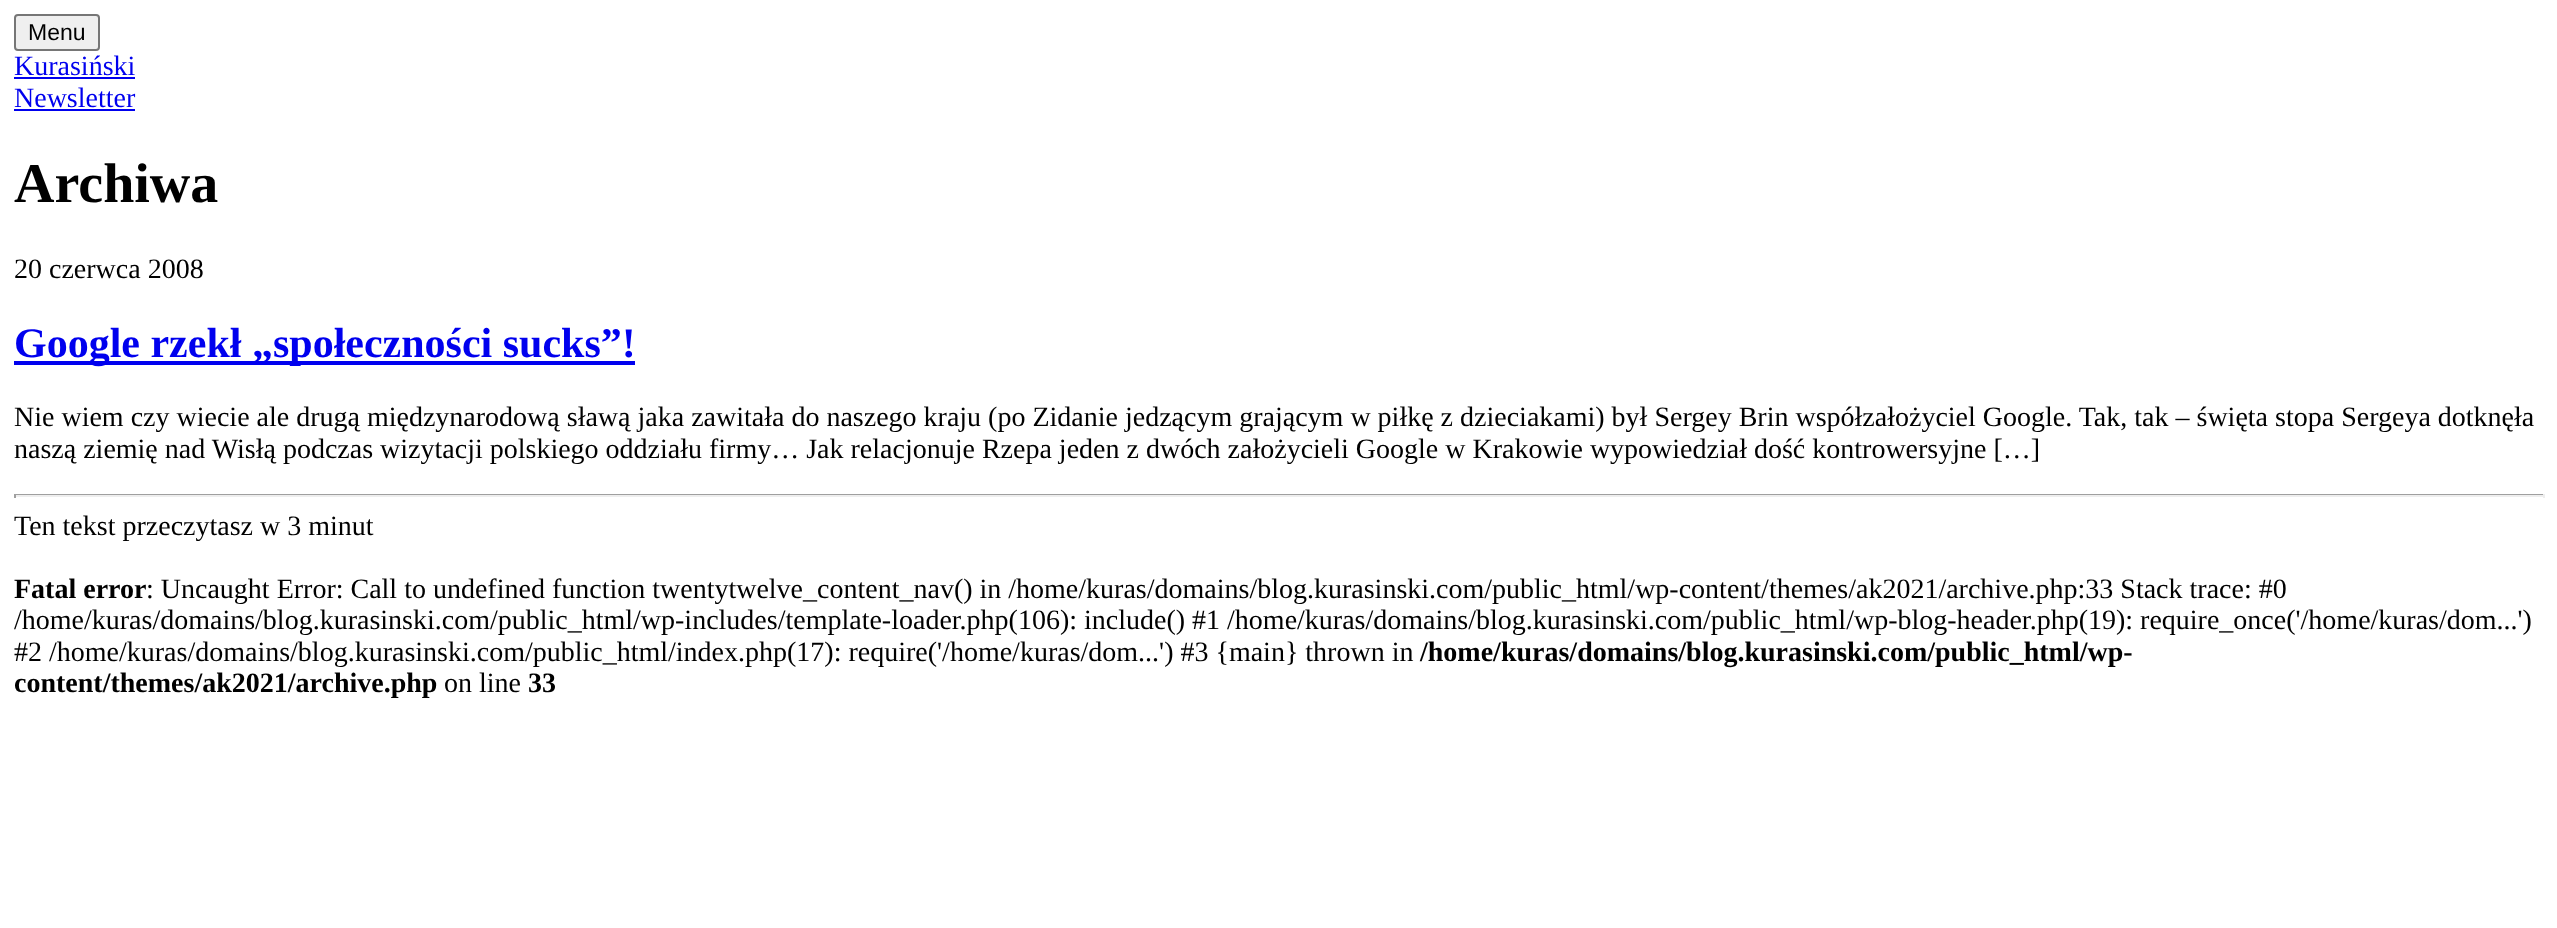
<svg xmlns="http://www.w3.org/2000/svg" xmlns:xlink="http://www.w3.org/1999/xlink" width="2557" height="928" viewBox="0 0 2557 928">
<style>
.cls-1{font:23px Liberation Sans;fill:#000000}
.cls-2{font:28px Liberation Serif;fill:#0000ee}
.cls-3{font:bold 56px Liberation Serif;fill:#000000}
.cls-4{font:28px Liberation Serif;fill:#000000}
.cls-5{font:bold 42px Liberation Serif;fill:#0000ee}
.cls-6{font:bold 28px Liberation Serif;fill:#000000}
</style>
<rect width="100%" height="100%" fill="#ffffff"/>
<rect fill="#efefef" stroke="#767676" stroke-width="2" x="15" y="15" width="84" height="35" rx="3"/>
<rect fill="#0000ee" x="14" y="77" width="121" height="2"/>
<rect fill="#0000ee" x="14" y="109" width="121" height="2"/>
<rect fill="#0000ee" x="14" y="361" width="621" height="4"/>
<rect fill="#9f9f9f" x="14" y="494" width="2531" height="1"/>
<rect fill="#eeeeee" x="2543" y="494" width="2" height="4"/>
<rect fill="#eeeeee" x="14" y="495" width="2531" height="2"/>
<rect fill="#9f9f9f" x="14" y="494" width="2" height="4"/>
<text class="cls-1" x="28" y="40">Menu</text>
<text class="cls-2"><tspan x="14" y="75">Kurasiński</tspan><tspan x="14" y="107">Newsletter</tspan></text>
<text class="cls-3" x="14" y="202">Archiwa</text>
<text class="cls-4" x="14" y="278">20 czerwca 2008</text>
<text class="cls-5" x="14" y="357">Google rzekł „społeczności sucks”!</text>
<text class="cls-4"><tspan x="14" y="426">Nie wiem czy wiecie ale drugą międzynarodową sławą jaka zawitała do naszego kraju (po Zidanie jedzącym grającym w piłkę z dzieciakami) był Sergey Brin współzałożyciel Google. Tak, tak – święta stopa Sergeya dotknęła</tspan><tspan x="14" y="458">naszą ziemię nad Wisłą podczas wizytacji polskiego oddziału firmy… Jak relacjonuje Rzepa jeden z dwóch założycieli Google w Krakowie wypowiedział dość kontrowersyjne […]</tspan></text>
<text class="cls-4" x="14" y="535">Ten tekst przeczytasz w 3 minut</text>
<text class="cls-6" x="14" y="598">Fatal error</text>
<text class="cls-4" x="146" y="598">: Uncaught Error: Call to undefined function twentytwelve_content_nav() in /home/kuras/domains/blog.kurasinski.com/public_html/wp-content/themes/ak2021/archive.php:33 Stack trace: #0</text>
<text class="cls-4"><tspan x="14" y="629">/home/kuras/domains/blog.kurasinski.com/public_html/wp-includes/template-loader.php(106): include() #1 /home/kuras/domains/blog.kurasinski.com/public_html/wp-blog-header.php(19): require_once('/home/kuras/dom...')</tspan><tspan x="14" y="661">#2 /home/kuras/domains/blog.kurasinski.com/public_html/index.php(17): require('/home/kuras/dom...') #3 {main} thrown in</tspan></text>
<text class="cls-6" x="1420" y="661">/home/kuras/domains/blog.kurasinski.com/public_html/wp-</text>
<text class="cls-6" x="14" y="692">content/themes/ak2021/archive.php</text>
<text class="cls-4" x="444" y="692">on line</text>
<text class="cls-6" x="528" y="692">33</text>
</svg>
